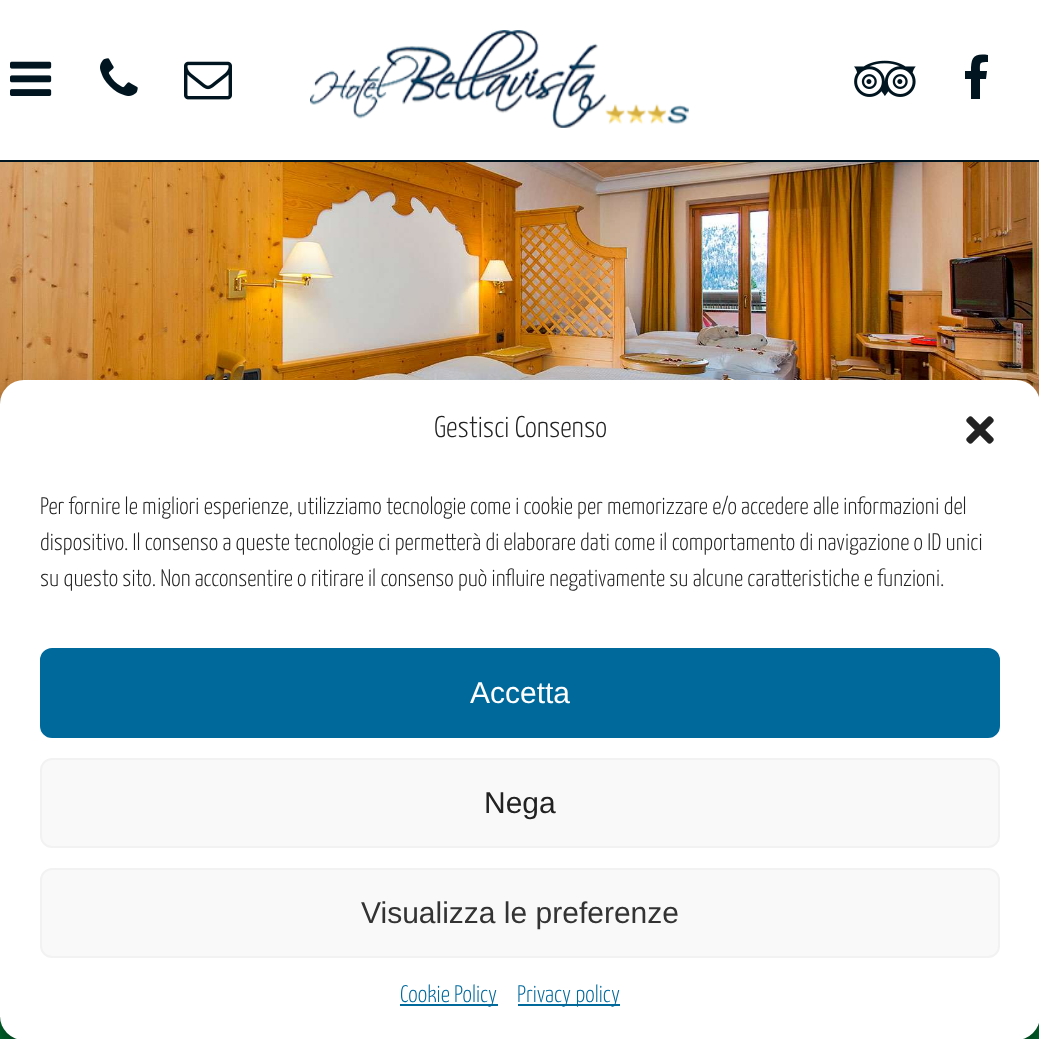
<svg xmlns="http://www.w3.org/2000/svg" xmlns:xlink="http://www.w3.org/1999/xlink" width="1039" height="1039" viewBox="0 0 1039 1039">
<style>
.cls-1{font:200 30px Yanone Kaffeesatz;fill:#222222}
.cls-2{font:200 24px Yanone Kaffeesatz;fill:#222222}
.cls-3{font:30px Liberation Sans;fill:#ffffff}
.cls-4{font:30px Liberation Sans;fill:#222222}
.cls-5{font:30px Liberation Sans;fill:#333333}
.cls-6{font:200 24px Yanone Kaffeesatz;fill:#00699c}
</style>
<rect width="100%" height="100%" fill="#ffffff"/>
<rect fill="#00151f" x="0" y="160" width="1039" height="2"/>
<image xlink:href="image0.png" x="10" y="61" width="42" height="35"/>
<image xlink:href="image1.png" x="100" y="58" width="38" height="38"/>
<image xlink:href="image2.png" x="184" y="61" width="48" height="39"/>
<image xlink:href="image3.png" x="310" y="30" width="379" height="98"/>
<image xlink:href="image4.png" x="854" y="60" width="62" height="37"/>
<path fill="#00151f" d="M988 55V62C979 62 980 63 980 71H987L986 79H980V99H971V79H965V71H971C971 58 973 53 988 55Z"/>
<image xlink:href="image5.png" x="0" y="162" width="1039" height="242"/>
<rect fill="#006c2f" x="0" y="1016" width="1039" height="23"/>
<rect fill="#000000" fill-opacity="0.23" filter="blur(6px)" x="0" y="392" width="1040" height="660" rx="24"/>
<rect fill="#000000" fill-opacity="0.19" filter="blur(20px)" x="0" y="400" width="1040" height="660" rx="24"/>
<rect fill="#ffffff" x="0" y="380" width="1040" height="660" rx="24"/>
<image xlink:href="image6.png" x="966" y="416" width="28" height="28"/>
<rect fill="#00699c" stroke="#00699c" stroke-width="2" x="41" y="649" width="958" height="88" rx="11"/>
<rect fill="#f9f9f9" stroke="#f2f2f2" stroke-width="2" x="41" y="759" width="958" height="88" rx="11"/>
<rect fill="#f9f9f9" stroke="#f2f2f2" stroke-width="2" x="41" y="869" width="958" height="88" rx="11"/>
<rect fill="#00699c" x="400" y="1004" width="98" height="2"/>
<rect fill="#00699c" x="518" y="1004" width="102" height="2"/>
<text class="cls-1" x="434" y="437">Gestisci Consenso</text>
<text class="cls-2"><tspan x="40" y="514">Per fornire le migliori esperienze, utilizziamo tecnologie come i cookie per memorizzare e/o accedere alle informazioni del</tspan><tspan x="40" y="550">dispositivo. Il consenso a queste tecnologie ci permetterà di elaborare dati come il comportamento di navigazione o ID unici</tspan><tspan x="40" y="586">su questo sito. Non acconsentire o ritirare il consenso può influire negativamente su alcune caratteristiche e funzioni.</tspan></text>
<text class="cls-3" x="470" y="703">Accetta</text>
<text class="cls-4" x="484" y="813">Nega</text>
<text class="cls-5" x="361" y="923">Visualizza le preferenze</text>
<text class="cls-6" x="400" y="1002">Cookie Policy</text>
<text class="cls-6" x="517" y="1002">Privacy policy</text>
</svg>
